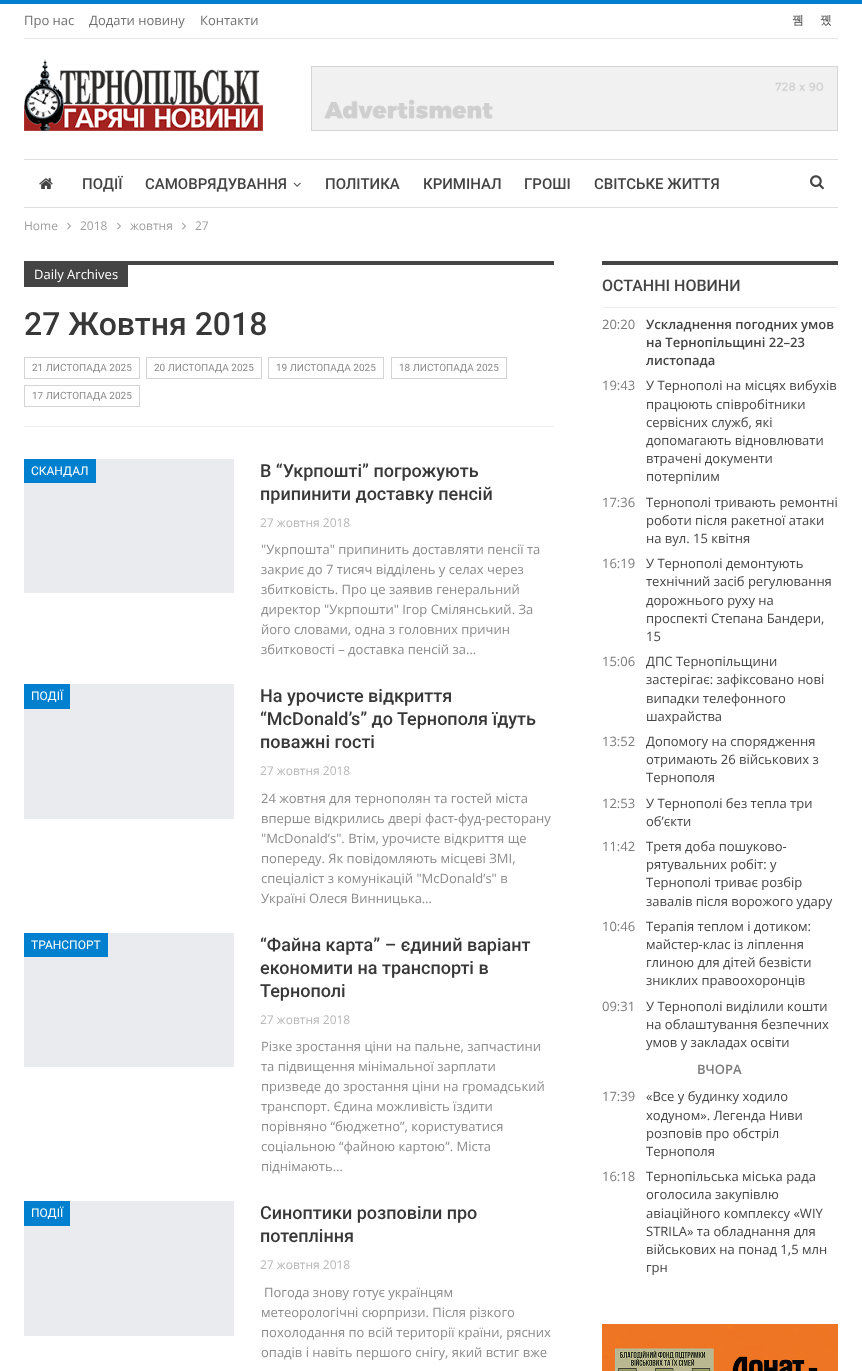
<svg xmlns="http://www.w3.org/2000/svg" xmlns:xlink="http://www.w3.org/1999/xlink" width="862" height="1371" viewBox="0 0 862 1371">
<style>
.cls-1{font:13px Open Sans;fill:#707070}
.cls-2{font:500 12px WenQuanYi Zen Hei;fill:#444444}
.cls-3{font:500 15px Roboto;fill:#444444}
.cls-4{font:12px Open Sans;fill:#9e9e9e}
.cls-5{font:13px Open Sans;fill:#ffffff}
.cls-6{font:500 32px Roboto;fill:#383838}
.cls-7{font:10px Roboto;fill:#8b8b8b}
.cls-8{font:12px Roboto;fill:#ffffff}
.cls-9{font:500 18px Roboto;fill:#383838}
.cls-10{font:12px Open Sans;fill:#b7b7b7}
.cls-11{font:13px Open Sans;fill:#8b8b8b}
.cls-12{font:500 16px Roboto;fill:#444444}
.cls-13{font:13px Open Sans;fill:#7b7b7b}
.cls-14{font:600 13px Open Sans;fill:#444444}
.cls-15{font:13px Open Sans;fill:#444444}
.cls-16{font:600 13px Open Sans;fill:#7b7b7b}
</style>
<rect width="100%" height="100%" fill="#ffffff"/>
<rect fill="#0080ce" x="0" y="0" width="862" height="4"/>
<rect fill="#e6e6e6" x="24" y="38" width="814" height="1"/>
<image xlink:href="image0.png" x="24" y="59" width="239" height="72"/>
<image xlink:href="image1.png" x="311" y="66" width="527" height="65"/>
<rect fill="#dedede" x="24" y="159" width="814" height="1"/>
<rect fill="#dedede" x="24" y="207" width="814" height="1"/>
<image xlink:href="image2.png" x="39" y="178" width="14" height="11"/>
<image xlink:href="image3.png" x="293" y="182" width="8" height="5"/>
<image xlink:href="image4.png" x="810" y="175" width="14" height="15"/>
<image xlink:href="image5.png" x="67" y="222" width="4" height="8"/>
<image xlink:href="image5.png" x="117" y="222" width="4" height="8"/>
<image xlink:href="image5.png" x="182" y="222" width="4" height="8"/>
<rect fill="#f0f0f0" x="24" y="426" width="530" height="1"/>
<rect fill="#444444" x="128" y="261" width="426" height="4"/>
<rect fill="#444444" x="24" y="261" width="104" height="26"/>
<rect fill="none" stroke="#d4d4d4" x="24.5" y="357.5" width="115" height="21"/>
<rect fill="none" stroke="#d4d4d4" x="146.5" y="357.5" width="115" height="21"/>
<rect fill="none" stroke="#d4d4d4" x="268.5" y="357.5" width="115" height="21"/>
<rect fill="none" stroke="#d4d4d4" x="391.5" y="357.5" width="115" height="21"/>
<rect fill="none" stroke="#d4d4d4" x="24.5" y="385.5" width="115" height="21"/>
<rect fill="#e9ebee" x="24" y="459" width="210" height="134"/>
<rect fill="#0080ce" x="24" y="459" width="72" height="24"/>
<rect fill="#e9ebee" x="24" y="684" width="210" height="135"/>
<rect fill="#0080ce" x="24" y="684" width="46" height="25"/>
<rect fill="#e9ebee" x="24" y="933" width="210" height="134"/>
<rect fill="#0080ce" x="24" y="933" width="84" height="24"/>
<rect fill="#e9ebee" x="24" y="1201" width="210" height="135"/>
<rect fill="#0080ce" x="24" y="1201" width="46" height="25"/>
<rect fill="#444444" x="602" y="261" width="236" height="4"/>
<rect fill="#ededed" x="602" y="307" width="236" height="1"/>
<image xlink:href="image6.png" x="602" y="1324" width="236" height="47"/>
<text class="cls-1" x="24" y="25">Про нас</text>
<text class="cls-1" x="89" y="25">Додати новину</text>
<text class="cls-1" x="200" y="25">Контакти</text>
<text class="cls-2" x="792" y="24">뀀</text>
<text class="cls-2" x="820" y="24">뀄</text>
<text class="cls-3" x="82" y="189">ПОДІЇ</text>
<text class="cls-3" x="145" y="189">САМОВРЯДУВАННЯ</text>
<text class="cls-3" x="325" y="189">ПОЛІТИКА</text>
<text class="cls-3" x="423" y="189">КРИМІНАЛ</text>
<text class="cls-3" x="524" y="189">ГРОШІ</text>
<text class="cls-3" x="594" y="189">СВІТСЬКЕ ЖИТТЯ</text>
<text class="cls-4" x="24" y="230">Home</text>
<text class="cls-4" x="80" y="230">2018</text>
<text class="cls-4" x="130" y="230">жовтня</text>
<text class="cls-4" x="195" y="230">27</text>
<text class="cls-5" x="34" y="279">Daily Archives</text>
<text class="cls-6" x="24" y="335">27 Жовтня 2018</text>
<text class="cls-7" x="32" y="371">21 ЛИСТОПАДА 2025</text>
<text class="cls-7" x="154" y="371">20 ЛИСТОПАДА 2025</text>
<text class="cls-7" x="276" y="371">19 ЛИСТОПАДА 2025</text>
<text class="cls-7" x="399" y="371">18 ЛИСТОПАДА 2025</text>
<text class="cls-7" x="32" y="399">17 ЛИСТОПАДА 2025</text>
<text class="cls-8" x="31" y="475">СКАНДАЛ</text>
<text class="cls-9"><tspan x="260" y="477">В “Укрпошті” погрожують</tspan><tspan x="260" y="500">припинити доставку пенсій</tspan></text>
<text class="cls-10" x="260" y="527">27 жовтня 2018</text>
<text class="cls-11"><tspan x="261" y="554">"Укрпошта" припинить доставляти пенсії та</tspan><tspan x="261" y="574">закриє до 7 тисяч відділень у селах через</tspan><tspan x="261" y="594">збитковість. Про це заявив генеральний</tspan><tspan x="261" y="614">директор "Укрпошти" Ігор Смілянський. За</tspan><tspan x="261" y="634">його словами, одна з головних причин</tspan><tspan x="261" y="654">збитковості – доставка пенсій за…</tspan></text>
<text class="cls-8" x="31" y="700">ПОДІЇ</text>
<text class="cls-9"><tspan x="260" y="702">На урочисте відкриття</tspan><tspan x="260" y="725">“McDonald’s” до Тернополя їдуть</tspan><tspan x="260" y="748">поважні гості</tspan></text>
<text class="cls-10" x="260" y="775">27 жовтня 2018</text>
<text class="cls-11"><tspan x="261" y="803">24 жовтня для тернополян та гостей міста</tspan><tspan x="261" y="823">вперше відкрились двері фаст-фуд-ресторану</tspan><tspan x="261" y="843">"McDonald’s". Втім, урочисте відкриття ще</tspan><tspan x="261" y="863">попереду. Як повідомляють місцеві ЗМІ,</tspan><tspan x="261" y="883">спеціаліст з комунікацій "McDonald’s" в</tspan><tspan x="261" y="903">Україні Олеся Винницька…</tspan></text>
<text class="cls-8" x="31" y="949">ТРАНСПОРТ</text>
<text class="cls-9"><tspan x="260" y="951">“Файна карта” – єдиний варіант</tspan><tspan x="260" y="974">економити на транспорті в</tspan><tspan x="260" y="997">Тернополі</tspan></text>
<text class="cls-10" x="260" y="1024">27 жовтня 2018</text>
<text class="cls-11"><tspan x="261" y="1051">Різке зростання ціни на пальне, запчастини</tspan><tspan x="261" y="1071">та підвищення мінімальної зарплати</tspan><tspan x="261" y="1091">призведе до зростання ціни на громадський</tspan><tspan x="261" y="1111">транспорт. Єдина можливість їздити</tspan><tspan x="261" y="1131">порівняно “бюджетно”, користуватися</tspan><tspan x="261" y="1151">соціальною “файною картою”. Міста</tspan><tspan x="261" y="1171">піднімають…</tspan></text>
<text class="cls-8" x="31" y="1217">ПОДІЇ</text>
<text class="cls-9"><tspan x="260" y="1219">Синоптики розповіли про</tspan><tspan x="260" y="1242">потепління</tspan></text>
<text class="cls-10" x="260" y="1269">27 жовтня 2018</text>
<text class="cls-11" x="264" y="1297">Погода знову готує українцям</text>
<text class="cls-11"><tspan x="261" y="1317">метеорологічні сюрпризи. Після різкого</tspan><tspan x="261" y="1337">похолодання по всій території країни, рясних</tspan><tspan x="261" y="1357">опадів і навіть першого снігу, який встиг вже</tspan></text>
<text class="cls-12" x="602" y="291">ОСТАННІ НОВИНИ</text>
<text class="cls-13" x="602" y="329">20:20</text>
<text class="cls-14"><tspan x="646" y="329">Ускладнення погодних умов</tspan><tspan x="646" y="347">на Тернопільщині 22–23</tspan><tspan x="646" y="365">листопада</tspan></text>
<text class="cls-13" x="602" y="390">19:43</text>
<text class="cls-15"><tspan x="646" y="390">У Тернополі на місцях вибухів</tspan><tspan x="646" y="409">працюють співробітники</tspan><tspan x="646" y="427">сервісних служб, які</tspan><tspan x="646" y="445">допомагають відновлювати</tspan><tspan x="646" y="463">втрачені документи</tspan><tspan x="646" y="481">потерпілим</tspan></text>
<text class="cls-13" x="602" y="507">17:36</text>
<text class="cls-15"><tspan x="646" y="507">Тернополі тривають ремонтні</tspan><tspan x="646" y="525">роботи після ракетної атаки</tspan><tspan x="646" y="543">на вул. 15 квітня</tspan></text>
<text class="cls-13" x="602" y="568">16:19</text>
<text class="cls-15"><tspan x="646" y="568">У Тернополі демонтують</tspan><tspan x="646" y="586">технічний засіб регулювання</tspan><tspan x="646" y="605">дорожнього руху на</tspan><tspan x="646" y="623">проспекті Степана Бандери,</tspan><tspan x="646" y="641">15</tspan></text>
<text class="cls-13" x="602" y="666">15:06</text>
<text class="cls-15"><tspan x="646" y="666">ДПС Тернопільщини</tspan><tspan x="646" y="684">застерігає: зафіксовано нові</tspan><tspan x="646" y="703">випадки телефонного</tspan><tspan x="646" y="721">шахрайства</tspan></text>
<text class="cls-13" x="602" y="746">13:52</text>
<text class="cls-15"><tspan x="646" y="746">Допомогу на спорядження</tspan><tspan x="646" y="764">отримають 26 військових з</tspan><tspan x="646" y="782">Тернополя</tspan></text>
<text class="cls-13" x="602" y="808">12:53</text>
<text class="cls-15"><tspan x="646" y="808">У Тернополі без тепла три</tspan><tspan x="646" y="826">об’єкти</tspan></text>
<text class="cls-13" x="602" y="851">11:42</text>
<text class="cls-15"><tspan x="646" y="851">Третя доба пошуково-</tspan><tspan x="646" y="869">рятувальних робіт: у</tspan><tspan x="646" y="887">Тернополі триває розбір</tspan><tspan x="646" y="906">завалів після ворожого удару</tspan></text>
<text class="cls-13" x="602" y="931">10:46</text>
<text class="cls-15"><tspan x="646" y="931">Терапія теплом і дотиком:</tspan><tspan x="646" y="949">майстер-клас із ліплення</tspan><tspan x="646" y="967">глиною для дітей безвісти</tspan><tspan x="646" y="985">зниклих правоохоронців</tspan></text>
<text class="cls-13" x="602" y="1011">09:31</text>
<text class="cls-15"><tspan x="646" y="1011">У Тернополі виділили кошти</tspan><tspan x="646" y="1029">на облаштування безпечних</tspan><tspan x="646" y="1047">умов у закладах освіти</tspan></text>
<text class="cls-16" x="697" y="1074">ВЧОРА</text>
<text class="cls-13" x="602" y="1101">17:39</text>
<text class="cls-15"><tspan x="646" y="1101">«Все у будинку ходило</tspan><tspan x="646" y="1120">ходуном». Легенда Ниви</tspan><tspan x="646" y="1138">розповів про обстріл</tspan><tspan x="646" y="1156">Тернополя</tspan></text>
<text class="cls-13" x="602" y="1181">16:18</text>
<text class="cls-15"><tspan x="646" y="1181">Тернопільська міська рада</tspan><tspan x="646" y="1199">оголосила закупівлю</tspan><tspan x="646" y="1218">авіаційного комплексу «WIY</tspan><tspan x="646" y="1236">STRILA» та обладнання для</tspan><tspan x="646" y="1254">військових на понад 1,5 млн</tspan><tspan x="646" y="1272">грн</tspan></text>
</svg>
